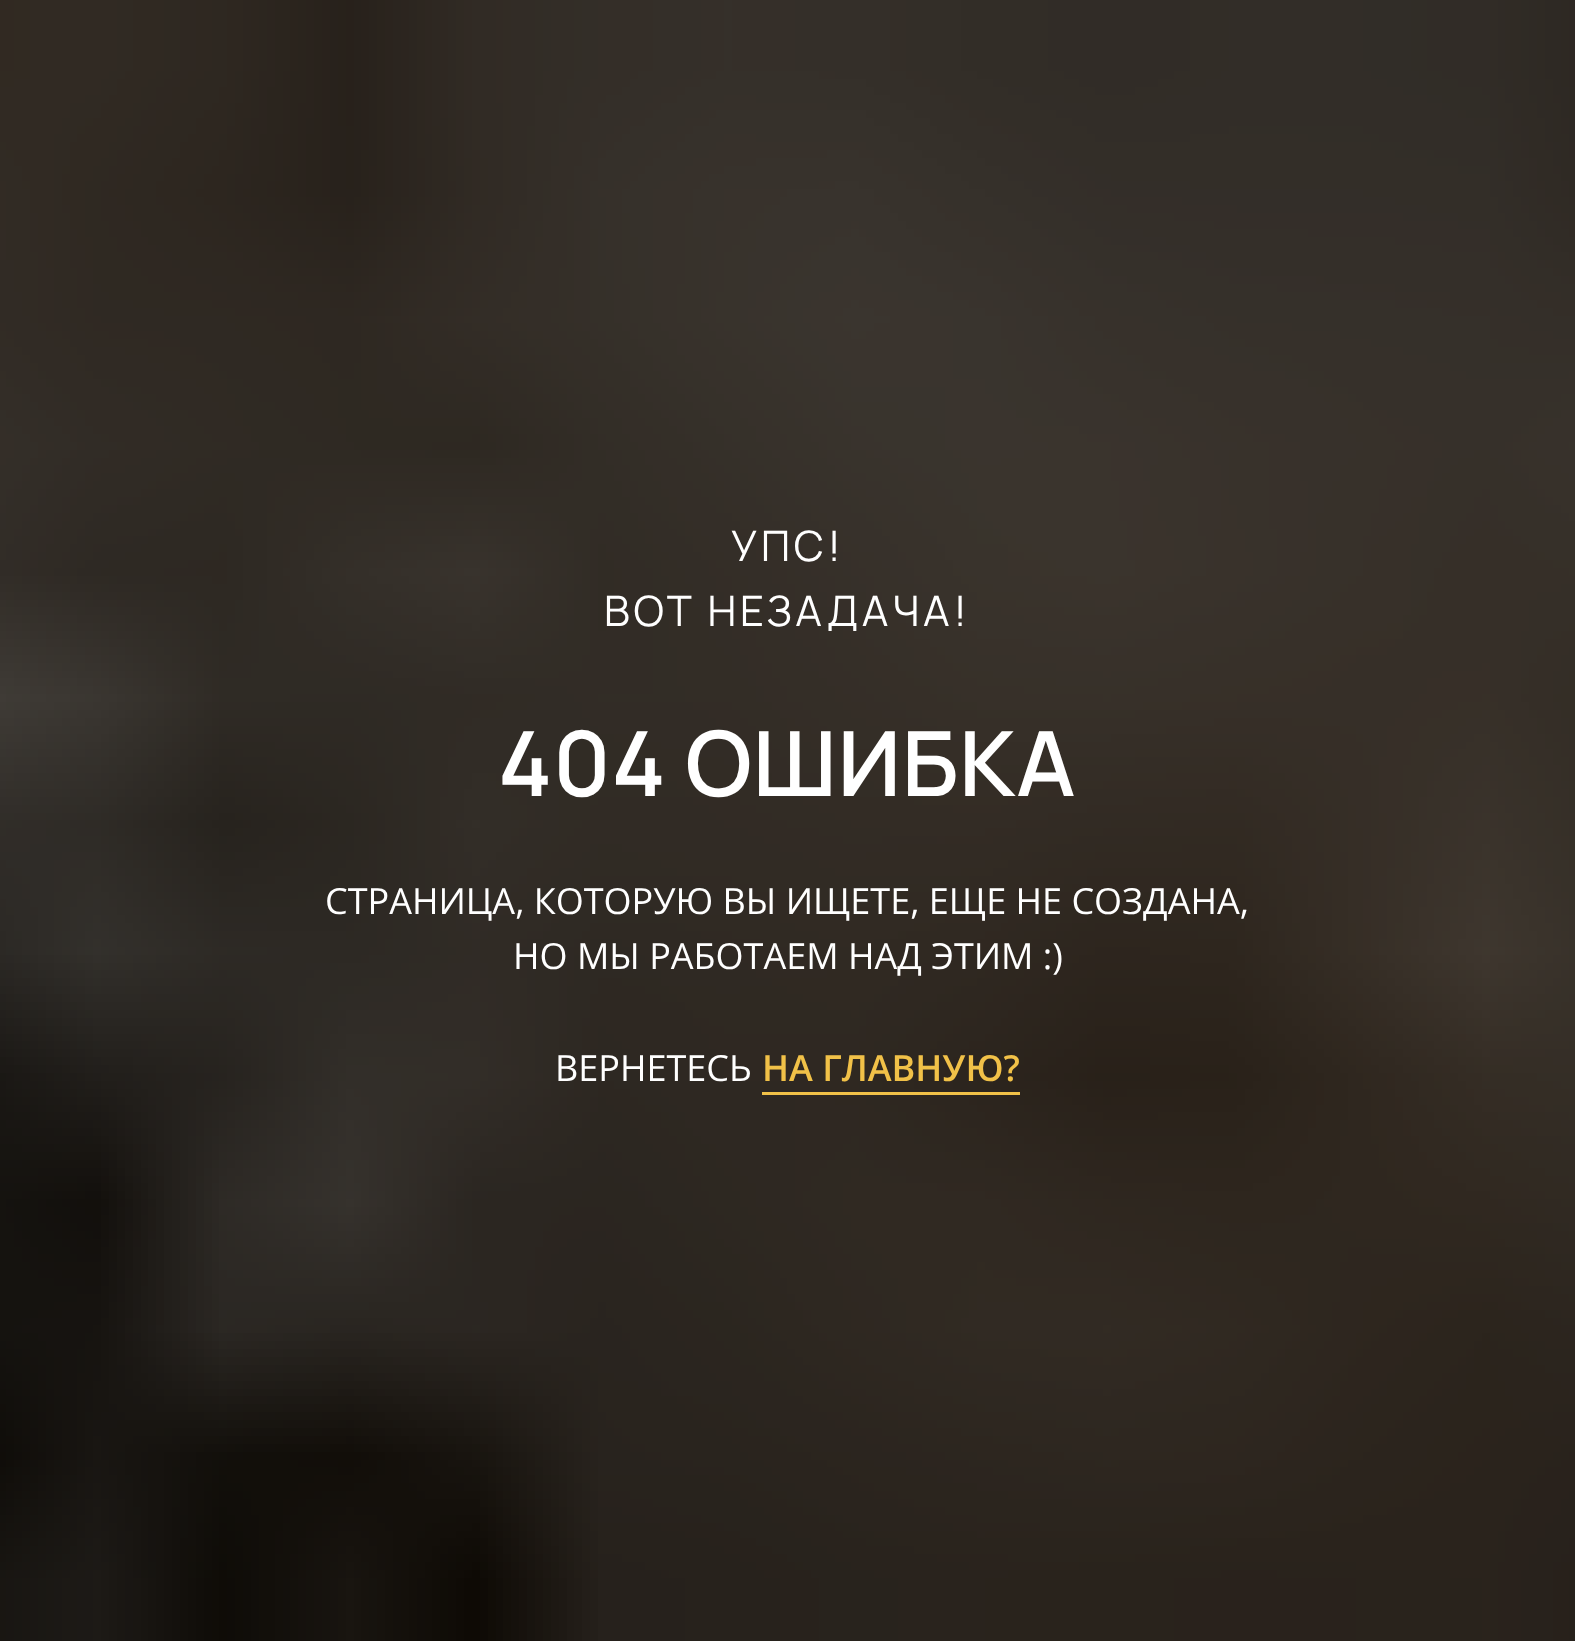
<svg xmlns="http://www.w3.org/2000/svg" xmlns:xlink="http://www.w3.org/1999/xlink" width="1575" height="1641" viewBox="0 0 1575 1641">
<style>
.cls-1{font:42px Manrope;letter-spacing:3.75px;fill:#ffffff}
.cls-2{font:600 90px Manrope;letter-spacing:0.75px;fill:#ffffff}
.cls-3{font:36px Open Sans;fill:#ffffff}
.cls-4{font:600 36px Open Sans;fill:#f1c148}
</style>
<rect width="100%" height="100%" fill="#ffffff"/>
<image xlink:href="image0.png" x="0" y="0" width="1575" height="1641"/>
<rect fill="#f1c148" x="762" y="1092" width="258" height="3"/>
<text class="cls-1" x="731" y="561">УПС!</text>
<text class="cls-1" x="604" y="626" word-spacing="1">ВОТ НЕЗАДАЧА!</text>
<text class="cls-2" x="498" y="796">404 ОШИБКА</text>
<text class="cls-3" x="325" y="914">СТРАНИЦА, КОТОРУЮ ВЫ ИЩЕТЕ, ЕЩЕ НЕ СОЗДАНА,</text>
<text class="cls-3" x="513" y="969">НО МЫ РАБОТАЕМ НАД ЭТИМ :)</text>
<text class="cls-3" x="555" y="1081">ВЕРНЕТЕСЬ</text>
<text class="cls-4" x="762" y="1081">НА ГЛАВНУЮ?</text>
</svg>
